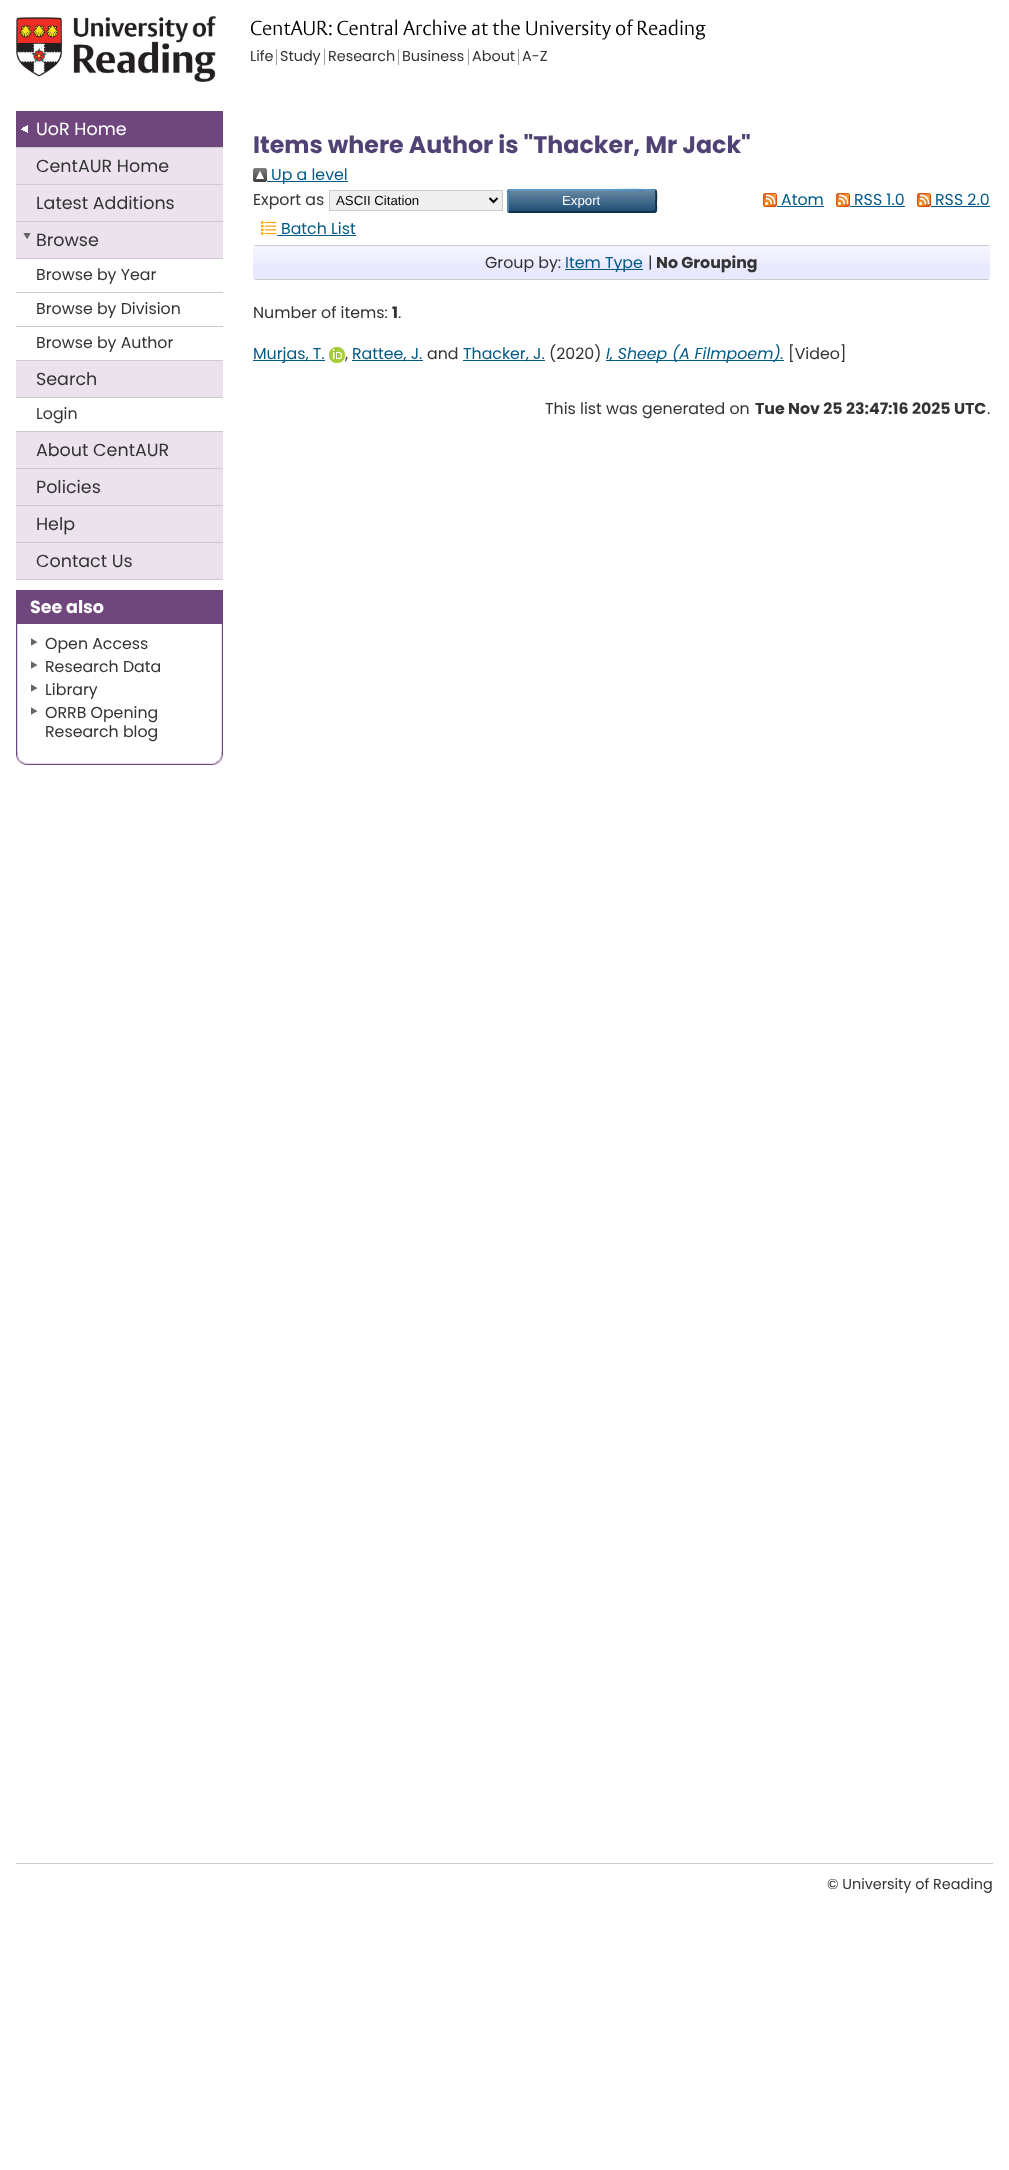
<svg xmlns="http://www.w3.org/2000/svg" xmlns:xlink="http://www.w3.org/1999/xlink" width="1009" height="2170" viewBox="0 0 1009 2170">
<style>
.cls-1{font:14.4px Poppins;fill:#333333}
.cls-2{font:17.5px Poppins;fill:#ffffff}
.cls-3{font:17.5px Poppins;fill:#333333}
.cls-4{font:15.8px Poppins;fill:#333333}
.cls-5{font:bold 17.5px Poppins;fill:#ffffff}
.cls-6{font:bold 23.75px Poppins;fill:#514275}
.cls-7{font:15.8px Poppins;fill:#025a88}
.cls-8{font:13.25px Liberation Sans;fill:#000000}
.cls-9{font:13.25px Liberation Sans;fill:#ffffff}
.cls-10{font:bold 15.8px Poppins;fill:#333333}
.cls-11{font:italic 15.8px Poppins;fill:#025a88}
</style>
<rect width="100%" height="100%" fill="#ffffff"/>
<image xlink:href="image0.png" x="16" y="16" width="200" height="66"/>
<image xlink:href="image1.png" x="251" y="19" width="455" height="21"/>
<rect fill="#a0a0a0" x="276" y="49" width="1" height="16"/>
<rect fill="#a0a0a0" x="324" y="49" width="1" height="16"/>
<rect fill="#a0a0a0" x="398" y="49" width="1" height="16"/>
<rect fill="#a0a0a0" x="468" y="49" width="1" height="16"/>
<rect fill="#a0a0a0" x="518" y="49" width="1" height="16"/>
<rect fill="#6f477d" x="16" y="111" width="207" height="36"/>
<image xlink:href="image2.png" x="21" y="125" width="7" height="8"/>
<rect fill="#cbcbcb" x="16" y="147" width="207" height="1"/>
<rect fill="#ebe2ee" x="16" y="148" width="207" height="36"/>
<rect fill="#cbcbcb" x="16" y="184" width="207" height="1"/>
<rect fill="#ebe2ee" x="16" y="185" width="207" height="36"/>
<rect fill="#cbcbcb" x="16" y="221" width="207" height="1"/>
<rect fill="#ebe2ee" x="16" y="222" width="207" height="36"/>
<image xlink:href="image3.png" x="23" y="233" width="8" height="7"/>
<rect fill="#cbcbcb" x="16" y="258" width="207" height="1"/>
<rect fill="#cbcbcb" x="16" y="292" width="207" height="1"/>
<rect fill="#cbcbcb" x="16" y="326" width="207" height="1"/>
<rect fill="#cbcbcb" x="16" y="360" width="207" height="1"/>
<rect fill="#ebe2ee" x="16" y="361" width="207" height="36"/>
<rect fill="#cbcbcb" x="16" y="397" width="207" height="1"/>
<rect fill="#cbcbcb" x="16" y="431" width="207" height="1"/>
<rect fill="#ebe2ee" x="16" y="432" width="207" height="36"/>
<rect fill="#cbcbcb" x="16" y="468" width="207" height="1"/>
<rect fill="#ebe2ee" x="16" y="469" width="207" height="36"/>
<rect fill="#cbcbcb" x="16" y="505" width="207" height="1"/>
<rect fill="#ebe2ee" x="16" y="506" width="207" height="36"/>
<rect fill="#cbcbcb" x="16" y="542" width="207" height="1"/>
<rect fill="#ebe2ee" x="16" y="543" width="207" height="36"/>
<rect fill="#cbcbcb" x="16" y="579" width="207" height="1"/>
<image xlink:href="image4.png" x="16" y="752" width="207" height="13"/>
<image xlink:href="image5.png" x="16" y="624" width="207" height="131"/>
<rect fill="#6f477d" x="16" y="590" width="207" height="34"/>
<image xlink:href="image6.png" x="31" y="638" width="7" height="9"/>
<image xlink:href="image6.png" x="31" y="661" width="7" height="9"/>
<image xlink:href="image6.png" x="31" y="684" width="7" height="9"/>
<image xlink:href="image6.png" x="31" y="707" width="7" height="9"/>
<image xlink:href="image7.png" x="253" y="168" width="14" height="14"/>
<rect fill="#025a88" x="267" y="181" width="81" height="1"/>
<rect fill="#efefef" stroke="#cccccc" x="329.5" y="190.5" width="173" height="20"/>
<path fill="none" stroke="#000000" stroke-width="2" d="M489.5 198L493.5 202L497.5 198"/>
<rect fill="#1f4f76" x="507" y="189" width="150" height="24" rx="3"/>
<image xlink:href="image8.png" x="507" y="191" width="150" height="19"/>
<path fill="none" stroke="#5b97c7" stroke-width="2" d="M508.5 190.5L510 190H606C609.5 190 654 189 655.5 190.5"/>
<path fill="none" stroke="#13324a" stroke-width="2" d="M655.5 190.5C657 192 656 201.5 656 204C656 205.5 657.5 211.5 654.5 212H510L508.5 211.5"/>
<path fill="none" stroke="#5287b3" stroke-width="2" d="M508.5 211.5C508 211 508 210.5 508 210V192C508 191.5 508 191 508.5 190.5"/>
<image xlink:href="image9.png" x="763" y="193" width="14" height="14"/>
<rect fill="#025a88" x="777" y="206" width="47" height="1"/>
<image xlink:href="image9.png" x="836" y="193" width="14" height="14"/>
<rect fill="#025a88" x="850" y="206" width="55" height="1"/>
<image xlink:href="image9.png" x="917" y="193" width="14" height="14"/>
<rect fill="#025a88" x="931" y="206" width="59" height="1"/>
<image xlink:href="image10.png" x="261" y="221" width="16" height="14"/>
<rect fill="#025a88" x="277" y="235" width="79" height="1"/>
<rect fill="#e8e8ff" x="253" y="245" width="737" height="35" rx="3"/>
<image xlink:href="image11.png" x="253" y="246" width="737" height="18"/>
<rect fill="#cccccc" x="255" y="245" width="734" height="1"/>
<rect fill="#cccccc" x="255" y="279" width="734" height="1"/>
<rect fill="#025a88" x="565" y="269" width="78" height="1"/>
<rect fill="#025a88" x="253" y="360" width="72" height="1"/>
<image xlink:href="image12.png" x="329" y="347" width="16" height="16"/>
<rect fill="#025a88" x="352" y="360" width="71" height="1"/>
<rect fill="#025a88" x="463" y="360" width="82" height="1"/>
<rect fill="#025a88" x="606" y="360" width="178" height="1"/>
<rect fill="#cccccc" x="16" y="1863" width="977" height="1"/>
<text class="cls-1" x="250" y="61">Life</text>
<text class="cls-1" x="280" y="61">Study</text>
<text class="cls-1" x="328" y="61">Research</text>
<text class="cls-1" x="402" y="61">Business</text>
<text class="cls-1" x="472" y="61">About</text>
<text class="cls-1" x="522" y="61">A-Z</text>
<text class="cls-2" x="36" y="135">UoR Home</text>
<text class="cls-3" x="36" y="172">CentAUR Home</text>
<text class="cls-3" x="36" y="209">Latest Additions</text>
<text class="cls-3" x="36" y="246">Browse</text>
<text class="cls-4" x="36" y="280">Browse by Year</text>
<text class="cls-4" x="36" y="314">Browse by Division</text>
<text class="cls-4" x="36" y="348">Browse by Author</text>
<text class="cls-3" x="36" y="385">Search</text>
<text class="cls-4" x="36" y="419">Login</text>
<text class="cls-3" x="36" y="456">About CentAUR</text>
<text class="cls-3" x="36" y="493">Policies</text>
<text class="cls-3" x="36" y="530">Help</text>
<text class="cls-3" x="36" y="567">Contact Us</text>
<text class="cls-5" x="30" y="613">See also</text>
<text class="cls-4"><tspan x="45" y="649">Open Access</tspan><tspan x="45" y="672">Research Data</tspan><tspan x="45" y="695">Library</tspan><tspan x="45" y="718">ORRB Opening</tspan><tspan x="45" y="737">Research blog</tspan></text>
<text class="cls-6" x="253" y="153">Items where Author is "Thacker, Mr Jack"</text>
<text class="cls-7" x="271" y="180">Up a level</text>
<text class="cls-4" x="253" y="205">Export as</text>
<text class="cls-8" x="336" y="205">ASCII Citation</text>
<text class="cls-9" x="562" y="205">Export</text>
<text class="cls-7" x="781" y="205">Atom</text>
<text class="cls-7" x="854" y="205">RSS 1.0</text>
<text class="cls-7" x="935" y="205">RSS 2.0</text>
<text class="cls-7" x="281" y="234">Batch List</text>
<text class="cls-4" x="485" y="268">Group by:</text>
<text class="cls-7" x="565" y="268">Item Type</text>
<text class="cls-4" x="648" y="268">|</text>
<text class="cls-10" x="656" y="268">No Grouping</text>
<text class="cls-4" x="253" y="318">Number of items:</text>
<text class="cls-10" x="392" y="318">1</text>
<text class="cls-4" x="398" y="318">.</text>
<text class="cls-7" x="253" y="359">Murjas, T.</text>
<text class="cls-4" x="345" y="359">,</text>
<text class="cls-7" x="352" y="359">Rattee, J.</text>
<text class="cls-4" x="427" y="359">and</text>
<text class="cls-7" x="463" y="359">Thacker, J.</text>
<text class="cls-4" x="549" y="359">(2020)</text>
<text class="cls-11" x="606" y="359">I, Sheep (A Filmpoem).</text>
<text class="cls-4" x="788" y="359">[Video]</text>
<text class="cls-4" x="545" y="414">This list was generated on</text>
<text class="cls-10" x="755" y="414">Tue Nov 25 23:47:16 2025 UTC</text>
<text class="cls-4" x="987" y="414">.</text>
<text class="cls-1" x="827" y="1889">© University of Reading</text>
</svg>
